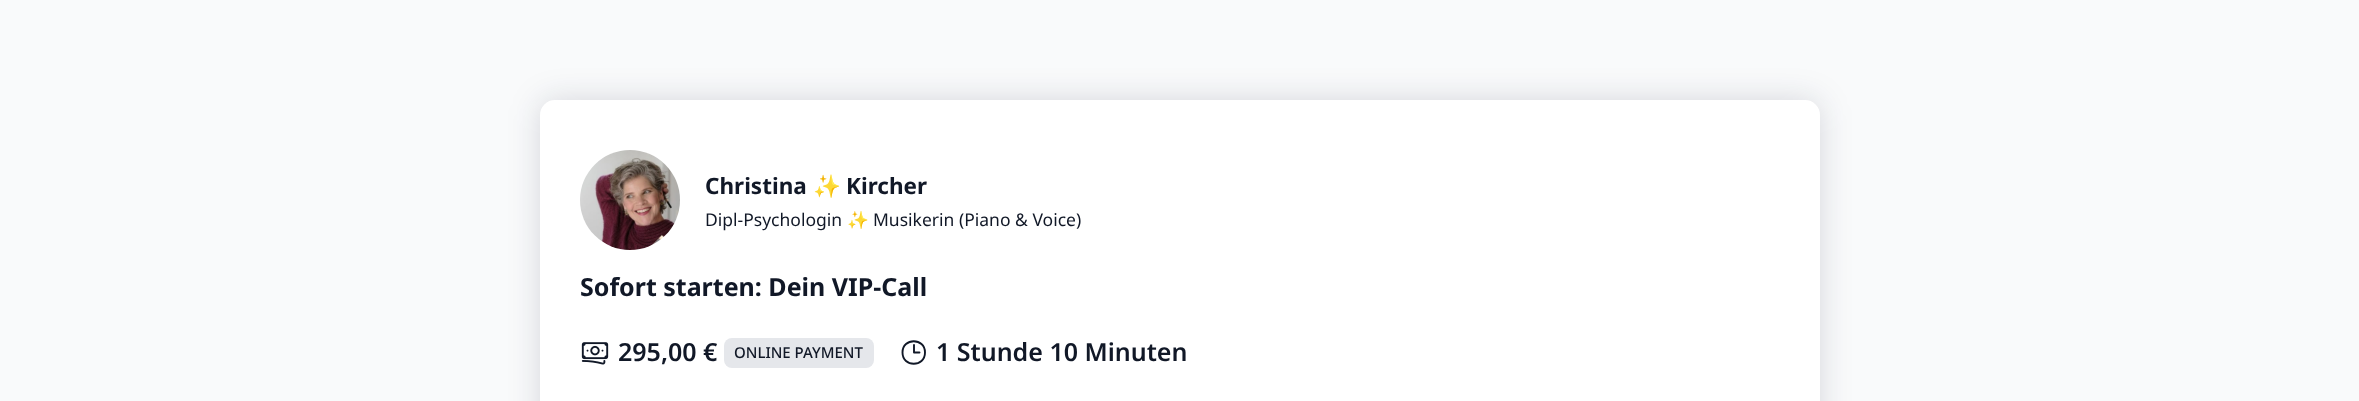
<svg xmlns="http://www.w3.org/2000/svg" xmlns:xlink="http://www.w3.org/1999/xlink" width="2359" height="401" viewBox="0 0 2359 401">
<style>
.cls-1{font:bold 22.5px Noto Sans;fill:#111827}
.cls-2{font:bold 22.5px Noto Color Emoji;fill:#111827}
.cls-3{font:17.5px Noto Sans;fill:#111827}
.cls-4{font:17.5px Noto Color Emoji;fill:#111827}
.cls-5{font:bold 25px Noto Sans;fill:#111827}
.cls-6{font:600 25px Noto Sans;fill:#111827}
.cls-7{font:500 15px Noto Sans;fill:#111827}
</style>
<rect width="100%" height="100%" fill="#f9fafb"/>
<rect fill="#0f112d" fill-opacity="0.15" filter="blur(16px)" x="540" y="100" width="1280" height="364" rx="15"/>
<rect fill="#ffffff" x="540" y="100" width="1280" height="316" rx="15"/>
<image xlink:href="image0.png" x="580" y="150" width="100" height="100"/>
<image xlink:href="image1.png" x="581" y="342" width="28" height="23"/>
<rect fill="#e5e7eb" x="724" y="338" width="150" height="30" rx="8"/>
<path fill="none" stroke="#111827" stroke-width="1.9" stroke-linecap="round" stroke-linejoin="round" d="M914 345V352.5H919.5M925 352.5C925 367.5 902.5 367.5 902.5 352.5C902.5 337.5 925 337.5 925 352.5Z"/>
<text class="cls-1" x="705" y="194">Christina</text>
<text class="cls-2" x="813" y="194">✨</text>
<text class="cls-1" x="846" y="194">Kircher</text>
<text class="cls-3" x="705" y="226">Dipl-Psychologin</text>
<text class="cls-4" x="847" y="226">✨</text>
<text class="cls-3" x="873" y="226">Musikerin (Piano &amp; Voice)</text>
<text class="cls-5" x="580" y="296">Sofort starten: Dein VIP-Call</text>
<text class="cls-6" x="618" y="361">295,00 €</text>
<text class="cls-7" x="734" y="358">ONLINE PAYMENT</text>
<text class="cls-6" x="936" y="361">1 Stunde 10 Minuten</text>
</svg>
